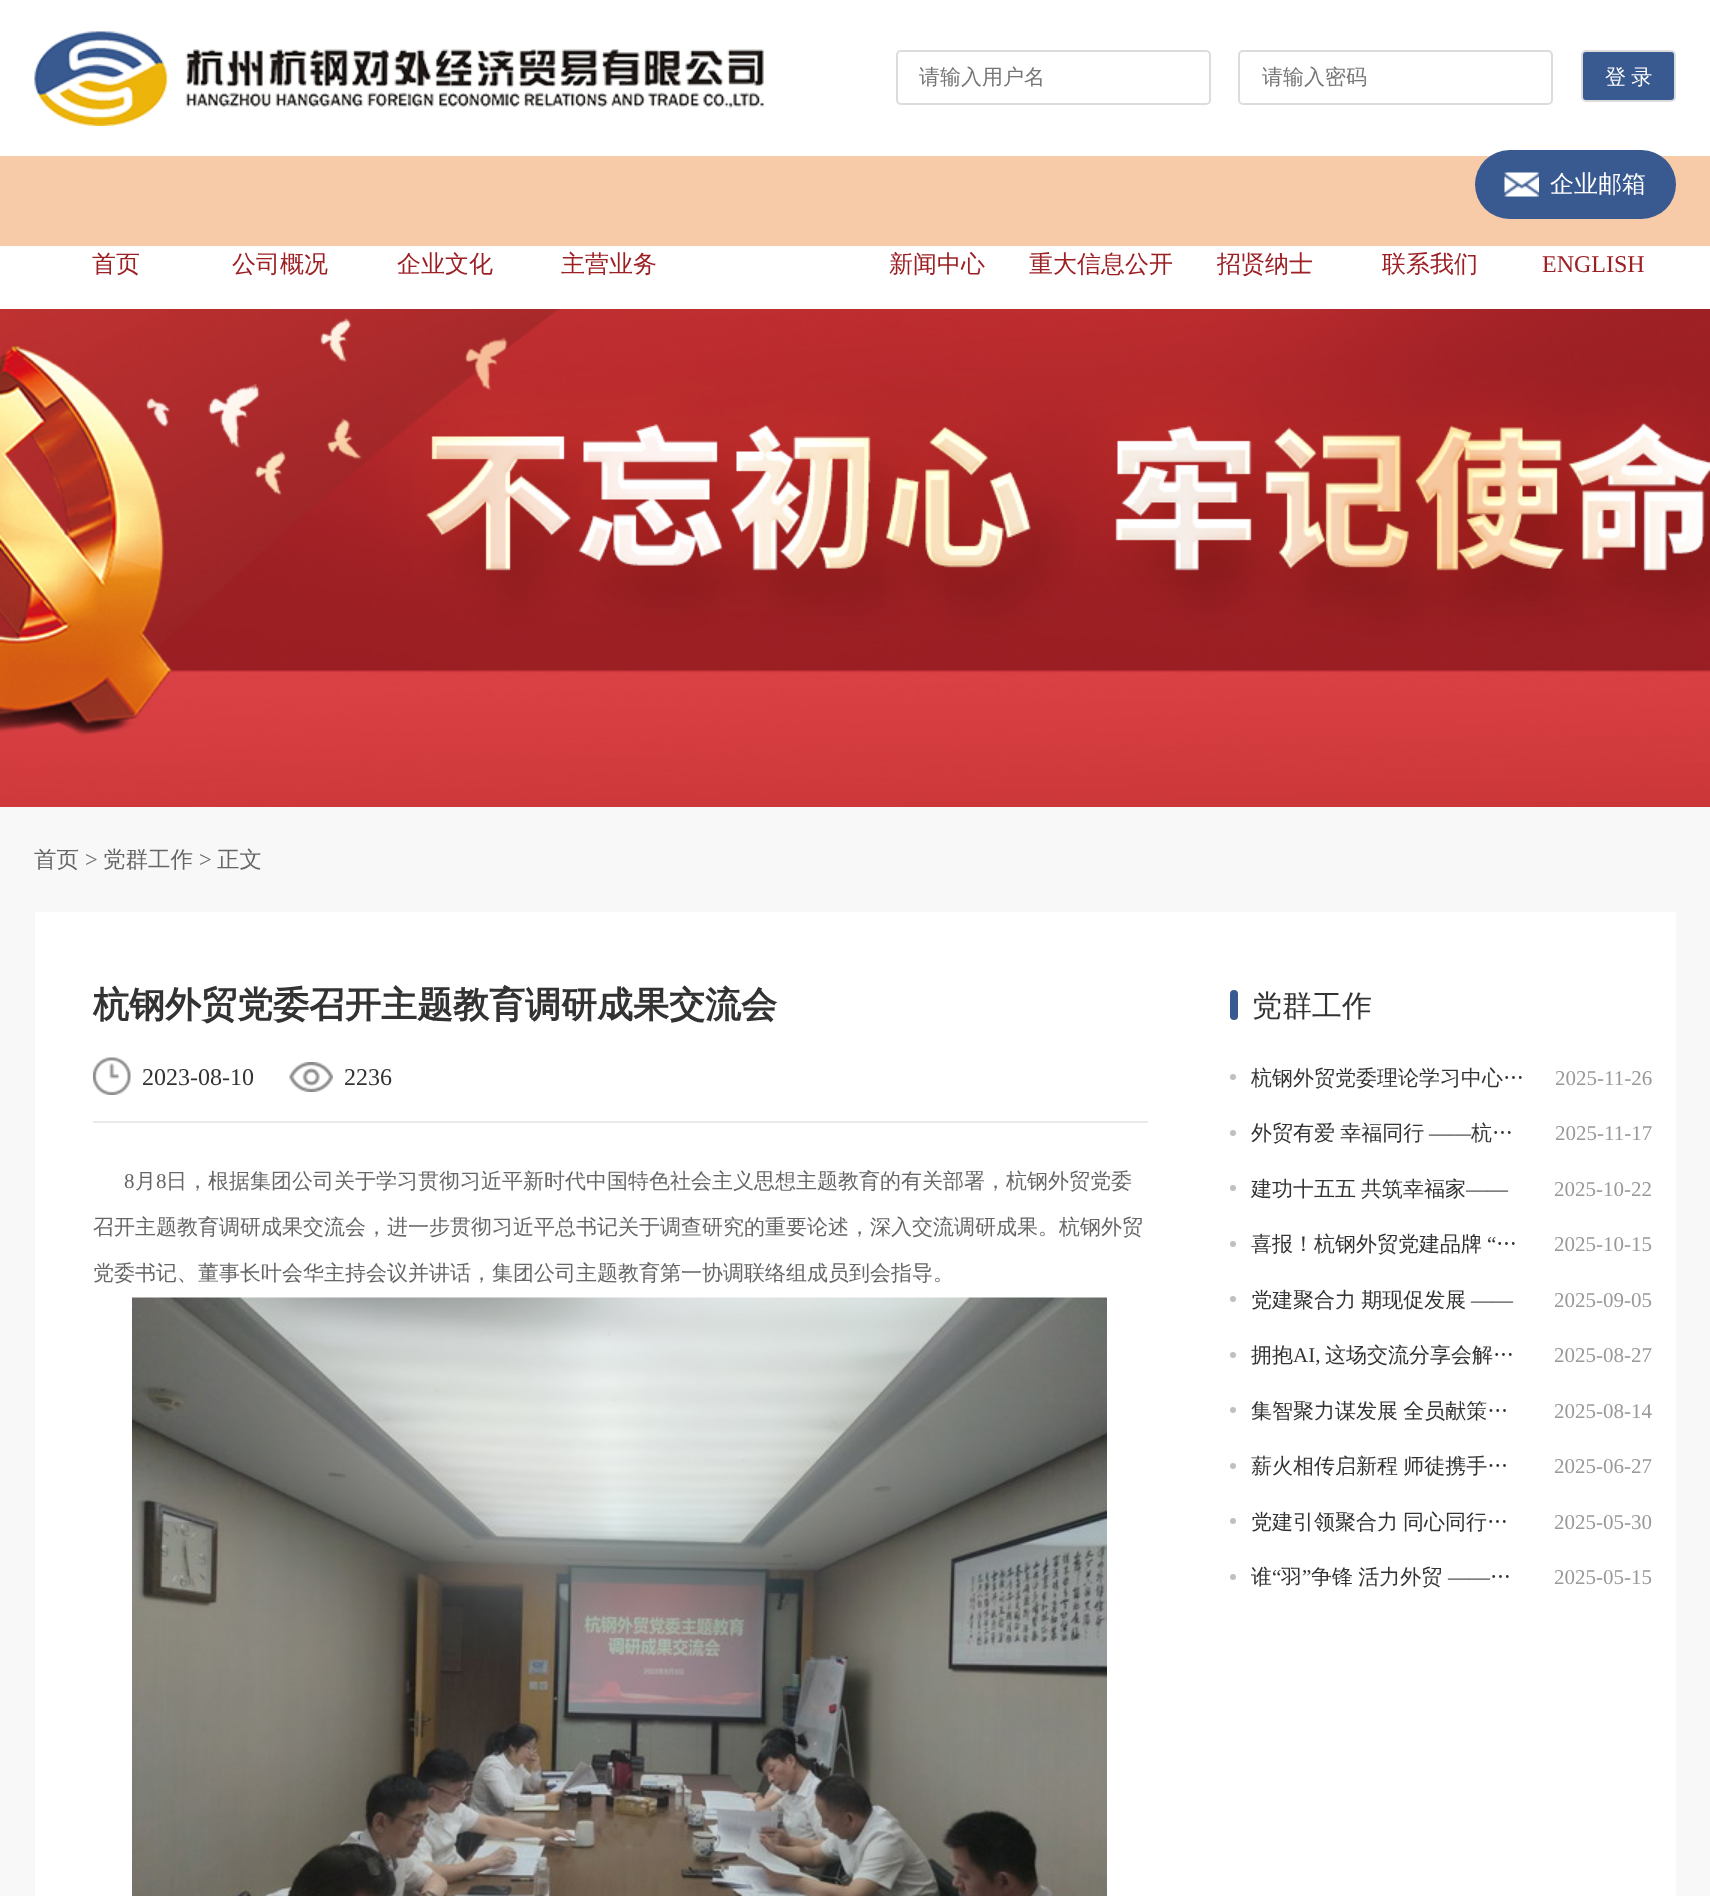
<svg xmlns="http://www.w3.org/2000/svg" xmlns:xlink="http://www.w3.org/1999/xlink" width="1710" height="1896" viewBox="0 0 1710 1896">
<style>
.cls-1{font:500 21px WenQuanYi Zen Hei;fill:#757575}
.cls-2{font:500 21px WenQuanYi Zen Hei;fill:#ffffff}
.cls-3{font:500 24px WenQuanYi Zen Hei;fill:#ffffff}
.cls-4{font:500 24px WenQuanYi Zen Hei;fill:#9c1f24}
.cls-5{font:24px Liberation Serif;fill:#9c1f24}
.cls-6{font:500 22.5px WenQuanYi Zen Hei;fill:#666666}
.cls-7{font:22.5px Liberation Serif;fill:#666666}
.cls-8{font:bold 36px WenQuanYi Zen Hei;fill:#333333}
.cls-9{font:24px Liberation Serif;fill:#333333}
.cls-10{font:21px Liberation Serif;fill:#666666}
.cls-11{font:500 21px WenQuanYi Zen Hei;fill:#666666}
.cls-12{font:500 30px WenQuanYi Zen Hei;fill:#333333}
.cls-13{font:500 21px WenQuanYi Zen Hei;fill:#333333}
.cls-14{font:21px Liberation Serif;fill:#999999}
.cls-15{font:21px Liberation Serif;fill:#333333}
</style>
<rect width="100%" height="100%" fill="#f8f8f8"/>
<rect fill="#ffffff" x="0" y="0" width="1710" height="309"/>
<image xlink:href="image0.png" x="34" y="31" width="730" height="95"/>
<rect fill="none" stroke="#dcdcdc" stroke-width="2" x="897" y="51" width="313" height="53" rx="4"/>
<rect fill="none" stroke="#dcdcdc" stroke-width="2" x="1239" y="51" width="313" height="53" rx="4"/>
<rect fill="#395a90" stroke="#dcdcdc" stroke-width="2" x="1582" y="51" width="93" height="50" rx="4"/>
<rect fill="#f7cba7" x="0" y="156" width="1710" height="90"/>
<rect fill="#395a90" x="1475" y="150" width="201" height="69" rx="34.5"/>
<image xlink:href="image1.png" x="1504" y="172" width="35" height="25"/>
<image xlink:href="image2.png" x="0" y="309" width="1710" height="498"/>
<rect fill="#ffffff" x="35" y="912" width="1641" height="984"/>
<rect fill="#eaeaea" x="93" y="1121" width="1055" height="2"/>
<image xlink:href="image3.png" x="93" y="1057" width="38" height="38"/>
<image xlink:href="image4.png" x="289" y="1062" width="44" height="30"/>
<image xlink:href="image5.png" x="132" y="1297" width="975" height="599"/>
<rect fill="#395a90" x="1230" y="990" width="8" height="30" rx="4"/>
<circle fill="#c0c0c0" cx="1233" cy="1077" r="3"/>
<circle fill="#c0c0c0" cx="1233" cy="1133" r="3"/>
<circle fill="#c0c0c0" cx="1233" cy="1188" r="3"/>
<circle fill="#c0c0c0" cx="1233" cy="1244" r="3"/>
<circle fill="#c0c0c0" cx="1233" cy="1299" r="3"/>
<circle fill="#c0c0c0" cx="1233" cy="1355" r="3"/>
<circle fill="#c0c0c0" cx="1233" cy="1410" r="3"/>
<circle fill="#c0c0c0" cx="1233" cy="1466" r="3"/>
<circle fill="#c0c0c0" cx="1233" cy="1521" r="3"/>
<circle fill="#c0c0c0" cx="1233" cy="1577" r="3"/>
<text class="cls-1" x="919" y="84">请输入用户名</text>
<text class="cls-1" x="1262" y="84">请输入密码</text>
<text class="cls-2" x="1605" y="84" word-spacing="-1">登 录</text>
<text class="cls-3" x="1550" y="192">企业邮箱</text>
<text class="cls-4" x="92" y="272">首页</text>
<text class="cls-4" x="232" y="272">公司概况</text>
<text class="cls-4" x="397" y="272">企业文化</text>
<text class="cls-4" x="561" y="272">主营业务</text>
<text class="cls-4" x="889" y="272">新闻中心</text>
<text class="cls-4" x="1029" y="272">重大信息公开</text>
<text class="cls-4" x="1217" y="272">招贤纳士</text>
<text class="cls-4" x="1382" y="272">联系我们</text>
<text class="cls-5" x="1542" y="272">ENGLISH</text>
<text class="cls-6" x="34" y="867">首页</text>
<text class="cls-7" x="85" y="867">&gt;</text>
<text class="cls-6" x="103" y="867">党群工作</text>
<text class="cls-7" x="199" y="867">&gt;</text>
<text class="cls-6" x="217" y="867">正文</text>
<text class="cls-8" x="93" y="1017">杭钢外贸党委召开主题教育调研成果交流会</text>
<text class="cls-9" x="142" y="1085">2023-08-10</text>
<text class="cls-9" x="344" y="1085">2236</text>
<text class="cls-10" x="124" y="1188">8</text>
<text class="cls-11" x="135" y="1188">月</text>
<text class="cls-10" x="156" y="1188">8</text>
<text class="cls-11" x="166" y="1188">日，根据集团公司关于学习贯彻习近平新时代中国特色社会主义思想主题教育的有关部署，杭钢外贸党委</text>
<text class="cls-11" x="93" y="1234">召开主题教育调研成果交流会，进一步贯彻习近平总书记关于调查研究的重要论述，深入交流调研成果。杭钢外贸</text>
<text class="cls-11" x="93" y="1280">党委书记、董事长叶会华主持会议并讲话，集团公司主题教育第一协调联络组成员到会指导。</text>
<text class="cls-12" x="1252" y="1016">党群工作</text>
<text class="cls-13" x="1251" y="1085">杭钢外贸党委理论学习中心…</text>
<text class="cls-14" x="1555" y="1085">2025-11-26</text>
<text class="cls-13" x="1251" y="1140" word-spacing="-1">外贸有爱 幸福同行</text>
<text class="cls-15" x="1429" y="1140">——</text>
<text class="cls-13" x="1471" y="1140">杭…</text>
<text class="cls-14" x="1555" y="1140">2025-11-17</text>
<text class="cls-13" x="1251" y="1196">建功十五五</text>
<text class="cls-13" x="1361" y="1196">共筑幸福家</text>
<text class="cls-15" x="1466" y="1196">——</text>
<text class="cls-14" x="1554" y="1196">2025-10-22</text>
<text class="cls-13" x="1251" y="1251">喜报！杭钢外贸党建品牌</text>
<text class="cls-15" x="1487" y="1251">“</text>
<text class="cls-13" x="1496" y="1251" word-spacing="-1">…</text>
<text class="cls-14" x="1554" y="1251">2025-10-15</text>
<text class="cls-13" x="1251" y="1307" word-spacing="-1">党建聚合力 期现促发展</text>
<text class="cls-15" x="1471" y="1307">——</text>
<text class="cls-14" x="1554" y="1307">2025-09-05</text>
<text class="cls-13" x="1251" y="1362">拥抱</text>
<text class="cls-15" x="1293" y="1362">AI,</text>
<text class="cls-13" x="1325" y="1362">这场交流分享会解…</text>
<text class="cls-14" x="1554" y="1362">2025-08-27</text>
<text class="cls-13" x="1251" y="1418" word-spacing="-1">集智聚力谋发展 全员献策…</text>
<text class="cls-14" x="1554" y="1418">2025-08-14</text>
<text class="cls-13" x="1251" y="1473" word-spacing="-1">薪火相传启新程 师徒携手…</text>
<text class="cls-14" x="1554" y="1473">2025-06-27</text>
<text class="cls-13" x="1251" y="1529">党建引领聚合力</text>
<text class="cls-13" x="1403" y="1529">同心同行…</text>
<text class="cls-14" x="1554" y="1529">2025-05-30</text>
<text class="cls-13" x="1251" y="1584">谁</text>
<text class="cls-15" x="1272" y="1584">“</text>
<text class="cls-13" x="1281" y="1584">羽</text>
<text class="cls-15" x="1302" y="1584">”</text>
<text class="cls-13" x="1311" y="1584" word-spacing="-1">争锋 活力外贸</text>
<text class="cls-13" x="1490" y="1584">…</text>
<text class="cls-15" x="1448" y="1584">——</text>
<text class="cls-14" x="1554" y="1584">2025-05-15</text>
</svg>
